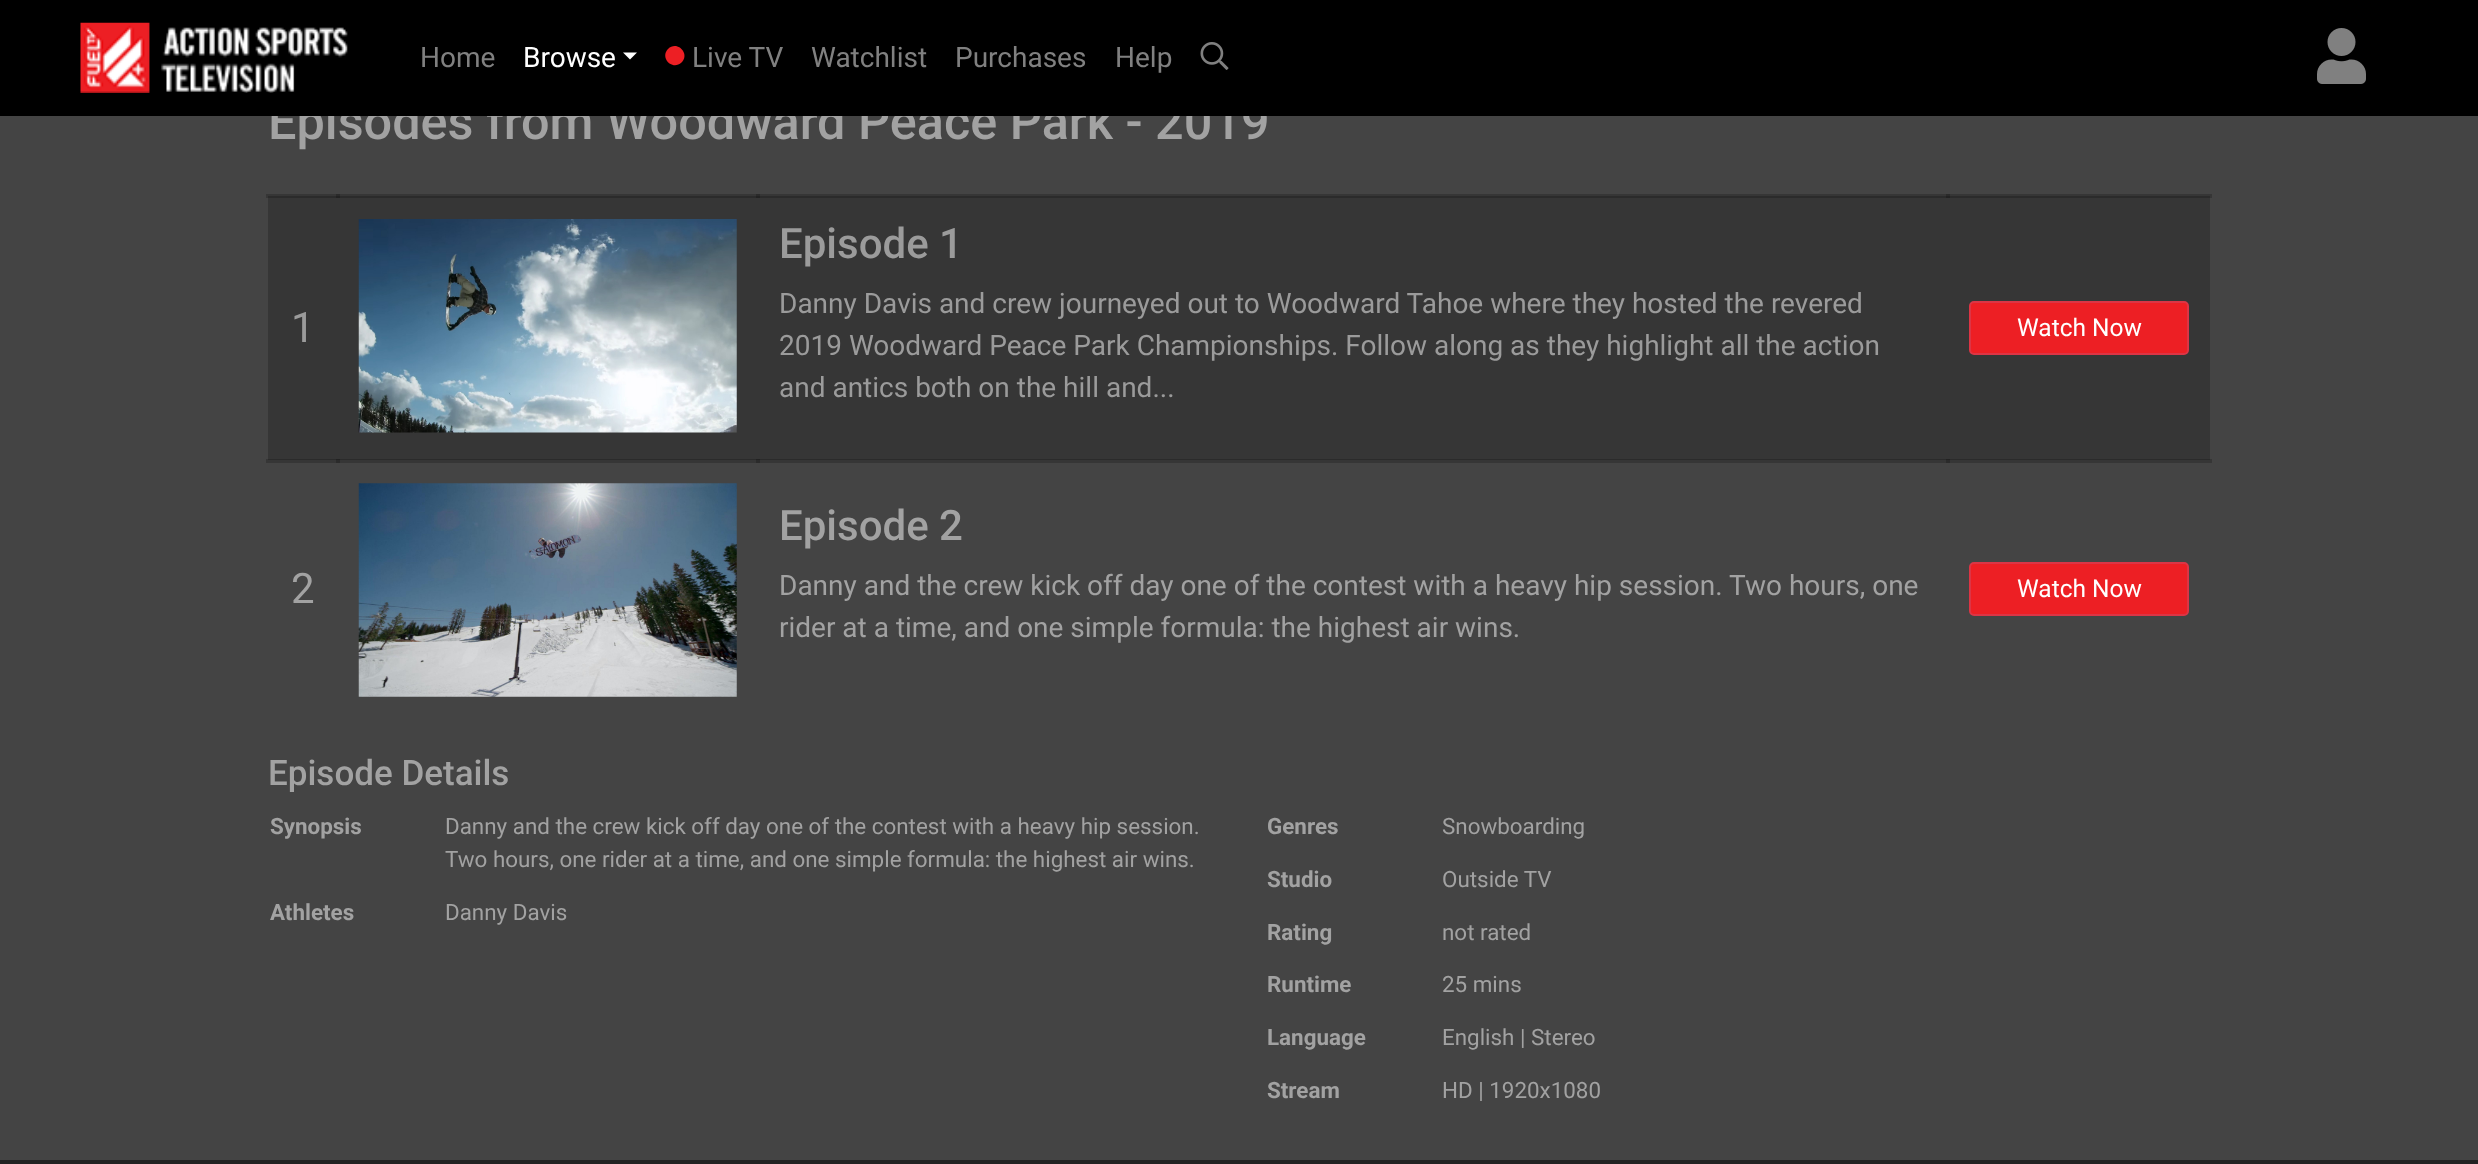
<svg xmlns="http://www.w3.org/2000/svg" xmlns:xlink="http://www.w3.org/1999/xlink" width="2478" height="1164" viewBox="0 0 2478 1164">
<style>
.cls-1{font:500 50.4px Roboto;fill:#a2a2a2}
.cls-2{font:28px Roboto;fill:#808080}
.cls-3{font:28px Roboto;fill:#ffffff}
.cls-4{font:42px Roboto;fill:#9b9b9b}
.cls-5{font:500 42px Roboto;fill:#9b9b9b}
.cls-6{font:28px Roboto;fill:#9b9b9b}
.cls-7{font:24.5px Roboto;fill:#ffffff}
.cls-8{font:42px Roboto;fill:#a2a2a2}
.cls-9{font:500 42px Roboto;fill:#a2a2a2}
.cls-10{font:28px Roboto;fill:#a2a2a2}
.cls-11{font:500 35px Roboto;fill:#a2a2a2}
.cls-12{font:bold 22.4px Roboto;fill:#a2a2a2}
.cls-13{font:22.4px Roboto;fill:#a2a2a2}
</style>
<rect width="100%" height="100%" fill="#444444"/>
<rect fill="#363636" x="266" y="194" width="74" height="4"/>
<rect fill="#363636" x="336" y="194" width="1614" height="2"/>
<rect fill="#2b2b2b" x="336" y="194" width="4" height="2"/>
<rect fill="#2b2b2b" x="756" y="194" width="4" height="2"/>
<rect fill="#363636" x="1946" y="194" width="266" height="4"/>
<rect fill="#2b2b2b" x="1946" y="194" width="4" height="2"/>
<rect fill="#363636" x="266" y="459" width="74" height="4"/>
<rect fill="#363636" x="336" y="460" width="1614" height="3"/>
<rect fill="#2b2b2b" x="336" y="460" width="4" height="3"/>
<rect fill="#2b2b2b" x="756" y="460" width="4" height="3"/>
<rect fill="#363636" x="1946" y="459" width="266" height="4"/>
<rect fill="#2b2b2b" x="1946" y="460" width="4" height="3"/>
<rect fill="#363636" x="268" y="198" width="1942" height="261"/>
<rect fill="#2b2b2b" x="268" y="196" width="1942" height="2"/>
<rect fill="#222222" x="336" y="196" width="4" height="2"/>
<rect fill="#222222" x="756" y="196" width="4" height="2"/>
<rect fill="#222222" x="1946" y="196" width="4" height="2"/>
<rect fill="#2b2b2b" x="268" y="459" width="1942" height="1"/>
<rect fill="#222222" x="336" y="459" width="4" height="1"/>
<rect fill="#222222" x="756" y="459" width="4" height="1"/>
<rect fill="#222222" x="1946" y="459" width="4" height="1"/>
<image xlink:href="image3.png" x="358" y="219" width="379" height="214"/>
<rect fill="#ed1f24" stroke="#dc3545" stroke-width="2" x="1970" y="302" width="218" height="52" rx="4"/>
<image xlink:href="image4.png" x="358" y="483" width="379" height="214"/>
<rect fill="#ed1f24" stroke="#dc3545" stroke-width="2" x="1970" y="563" width="218" height="52" rx="4"/>
<rect fill="#222222" x="0" y="1160" width="2478" height="4"/>
<text class="cls-1" x="268" y="139">Episodes from Woodward Peace Park - 2019</text>
<rect fill="#000000" x="0" y="0" width="2478" height="116"/>
<image xlink:href="image1.png" x="1200" y="42" width="29" height="28"/>
<text class="cls-2" x="1115" y="67">Help</text>
<text class="cls-2" x="955" y="67">Purchases</text>
<text class="cls-2" x="811" y="67">Watchlist</text>
<text class="cls-2" x="692" y="67">Live TV</text>
<path fill="#ed1f24" d="M668 49C677 40 690.5 53.5 681.5 62.5C672.5 71 659.5 58 668 49Z"/>
<path fill="#ffffff" d="M623 52.5H637L630 59.5Z"/>
<text class="cls-3" x="523" y="67">Browse</text>
<text class="cls-2" x="420" y="67">Home</text>
<image xlink:href="image2.png" x="2317" y="28" width="49" height="56"/>
<image xlink:href="image0.png" x="80" y="22" width="268" height="71"/>
<text class="cls-4" x="291" y="342">1</text>
<text class="cls-5" x="779" y="258">Episode 1</text>
<text class="cls-6"><tspan x="779" y="313">Danny Davis and crew journeyed out to Woodward Tahoe where they hosted the revered</tspan><tspan x="779" y="355">2019 Woodward Peace Park Championships. Follow along as they highlight all the action</tspan><tspan x="779" y="397">and antics both on the hill and...</tspan></text>
<text class="cls-7" x="2017" y="336">Watch Now</text>
<text class="cls-8" x="291" y="603">2</text>
<text class="cls-9" x="779" y="540">Episode 2</text>
<text class="cls-10"><tspan x="779" y="595">Danny and the crew kick off day one of the contest with a heavy hip session. Two hours, one</tspan><tspan x="779" y="637">rider at a time, and one simple formula: the highest air wins.</tspan></text>
<text class="cls-7" x="2017" y="597">Watch Now</text>
<text class="cls-11" x="268" y="785">Episode Details</text>
<text class="cls-12" x="270" y="834">Synopsis</text>
<text class="cls-13"><tspan x="445" y="834">Danny and the crew kick off day one of the contest with a heavy hip session.</tspan><tspan x="445" y="867">Two hours, one rider at a time, and one simple formula: the highest air wins.</tspan></text>
<text class="cls-12" x="270" y="920">Athletes</text>
<text class="cls-13" x="445" y="920">Danny Davis</text>
<text class="cls-12" x="1267" y="834">Genres</text>
<text class="cls-13" x="1442" y="834">Snowboarding</text>
<text class="cls-12" x="1267" y="887">Studio</text>
<text class="cls-13" x="1442" y="887">Outside TV</text>
<text class="cls-12" x="1267" y="940">Rating</text>
<text class="cls-13" x="1442" y="940">not rated</text>
<text class="cls-12" x="1267" y="992">Runtime</text>
<text class="cls-13" x="1442" y="992">25 mins</text>
<text class="cls-12" x="1267" y="1045">Language</text>
<text class="cls-13" x="1442" y="1045">English | Stereo</text>
<text class="cls-12" x="1267" y="1098">Stream</text>
<text class="cls-13" x="1442" y="1098">HD | 1920x1080</text>
</svg>
